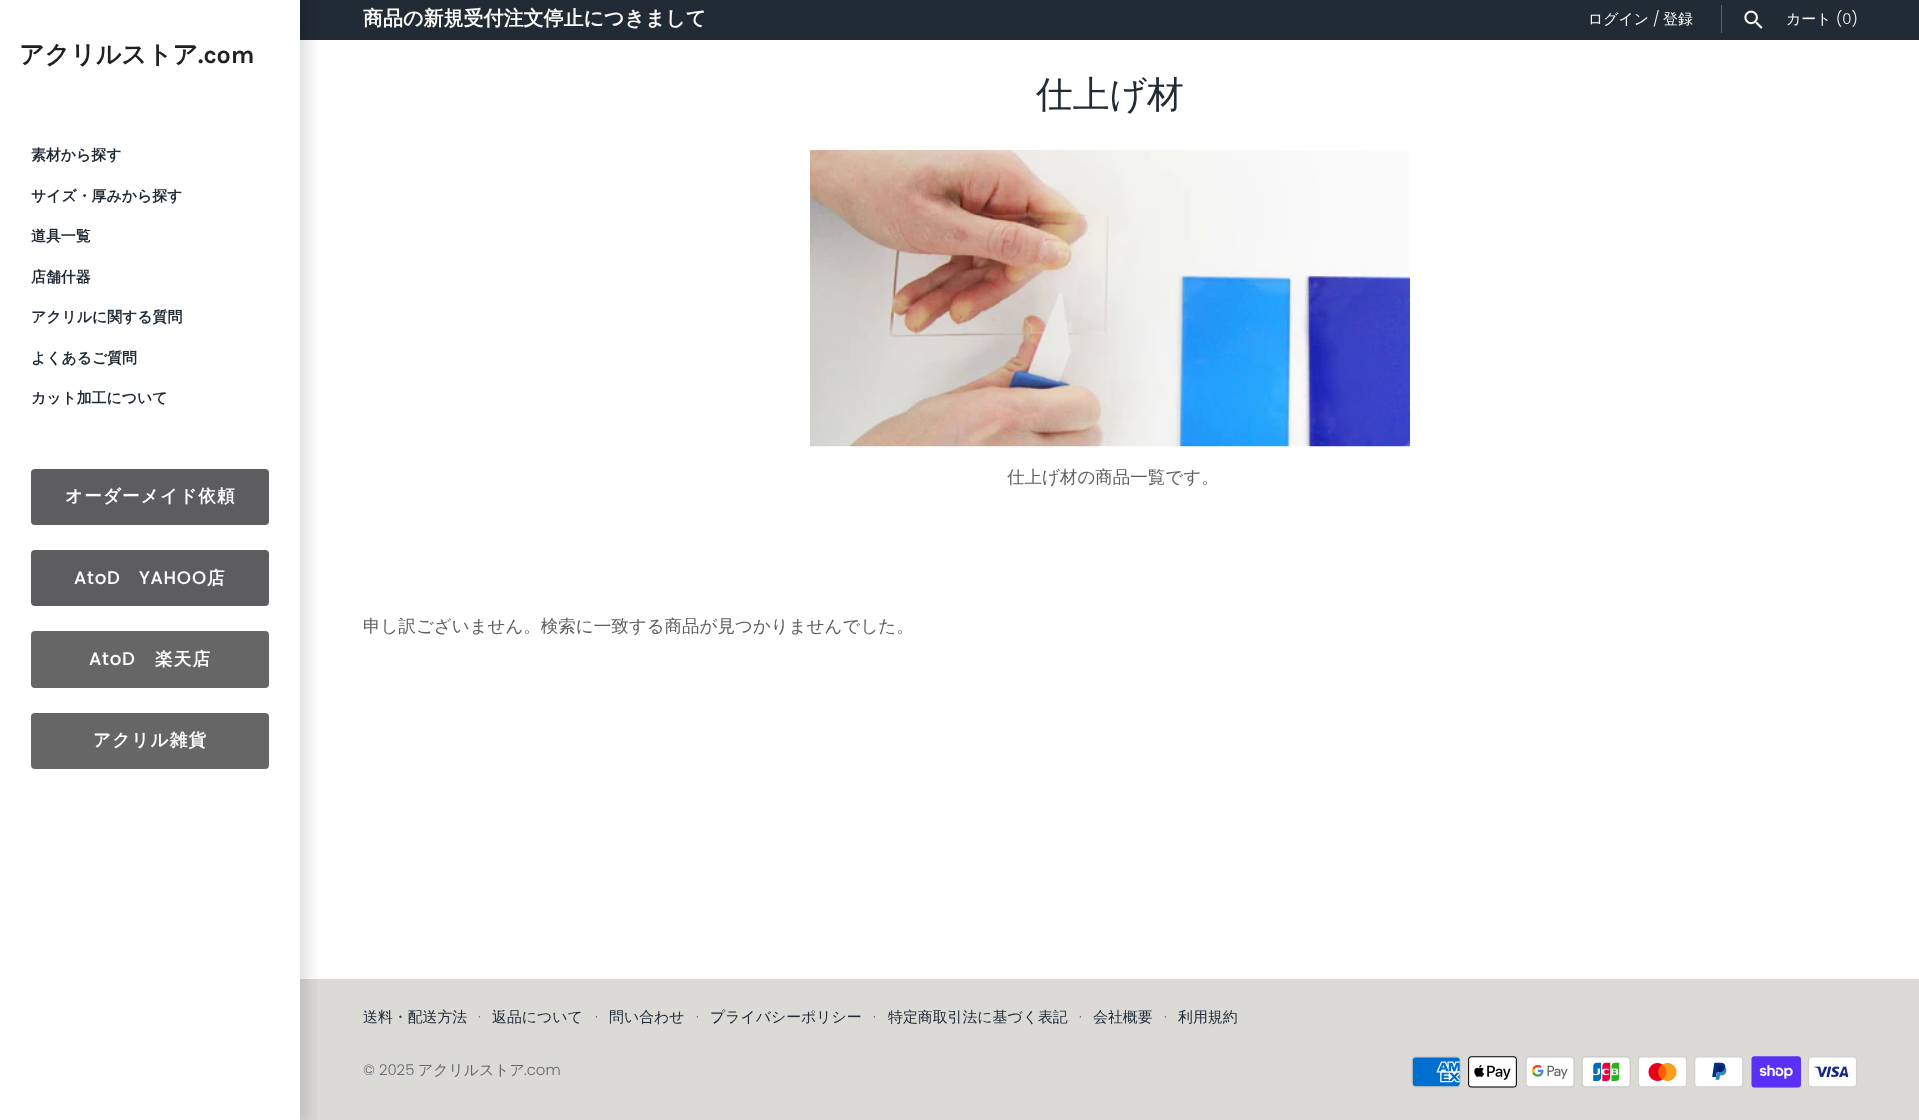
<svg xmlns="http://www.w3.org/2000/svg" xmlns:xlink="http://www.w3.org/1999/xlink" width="1919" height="1120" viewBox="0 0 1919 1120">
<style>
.cls-1{font:bold 20px WenQuanYi Zen Hei;fill:#faf9f5}
.cls-2{font:500 14.9px WenQuanYi Zen Hei;fill:#faf9f5}
.cls-3{font:300 14.9px Poppins;fill:#faf9f5}
.cls-4{font:bold 25px WenQuanYi Zen Hei;fill:#212121}
.cls-5{font:bold 25px Karla;fill:#212121}
.cls-6{font:bold 14.9px WenQuanYi Zen Hei;fill:#212b36}
.cls-7{font:bold 17.5px WenQuanYi Zen Hei;letter-spacing:1.25px;fill:#ffffff}
.cls-8{font:bold 17.5px Poppins;letter-spacing:1.25px;fill:#ffffff}
.cls-9{font:500 36.75px WenQuanYi Zen Hei;fill:#212b36}
.cls-10{font:500 17.5px WenQuanYi Zen Hei;fill:#5d5d60}
.cls-11{font:500 14.9px WenQuanYi Zen Hei;fill:#212b36}
.cls-12{font:300 14.9px Poppins;fill:#62686e}
.cls-13{font:500 14.9px WenQuanYi Zen Hei;fill:#62686e}
</style>
<defs>
<clipPath id="clip1"><rect x="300" y="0" width="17" height="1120"/></clipPath>
</defs>
<rect width="100%" height="100%" fill="#ffffff"/>
<rect fill="#212b36" x="300" y="0" width="1619" height="40"/>
<rect fill="#575f66" x="1721" y="5" width="1" height="28"/>
<image xlink:href="image0.png" x="1744" y="10" width="19" height="19"/>
<rect fill="#dbdad7" x="300" y="979" width="1619" height="141"/>
<g clip-path="url(#clip1)">
<rect fill="#000000" fill-opacity="0.15" filter="blur(9.5px)" x="-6" y="-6" width="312" height="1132"/>
</g>
<rect fill="#5d5d60" x="31" y="469" width="238" height="56" rx="4"/>
<rect fill="#5d5d60" x="31" y="550" width="238" height="56" rx="4"/>
<rect fill="#666666" x="31" y="631" width="238" height="57" rx="4"/>
<rect fill="#666666" x="31" y="713" width="238" height="56" rx="4"/>
<image xlink:href="image1.png" x="810" y="150" width="600" height="297"/>
<image xlink:href="image2.png" x="1411" y="1056" width="50" height="32"/>
<image xlink:href="image3.png" x="1468" y="1056" width="49" height="32"/>
<image xlink:href="image4.png" x="1525" y="1056" width="50" height="32"/>
<image xlink:href="image5.png" x="1581" y="1056" width="50" height="32"/>
<image xlink:href="image6.png" x="1638" y="1056" width="49" height="32"/>
<image xlink:href="image7.png" x="1694" y="1056" width="50" height="32"/>
<image xlink:href="image8.png" x="1751" y="1056" width="50" height="32"/>
<image xlink:href="image9.png" x="1808" y="1056" width="49" height="32"/>
<text class="cls-1" x="363" y="25">商品の新規受付注文停止につきまして</text>
<text class="cls-2" x="1588" y="24">ログイン</text>
<text class="cls-3" x="1653" y="24">/</text>
<text class="cls-2" x="1663" y="24">登録</text>
<text class="cls-2" x="1786" y="24">カート</text>
<text class="cls-3" x="1836" y="24">(0)</text>
<text class="cls-4" x="19" y="63">アクリルストア</text>
<text class="cls-5" x="198" y="63">.com</text>
<text class="cls-6" x="31" y="160">素材から探す</text>
<text class="cls-6" x="31" y="201">サイズ・厚みから探す</text>
<text class="cls-6" x="31" y="241">道具一覧</text>
<text class="cls-6" x="31" y="282">店舗什器</text>
<text class="cls-6" x="31" y="322">アクリルに関する質問</text>
<text class="cls-6" x="31" y="363">よくあるご質問</text>
<text class="cls-6" x="31" y="403">カット加工について</text>
<text class="cls-7" x="65" y="502">オーダーメイド依頼</text>
<text class="cls-8" x="74" y="584">AtoD</text>
<text class="cls-8" x="139" y="584">YAHOO</text>
<text class="cls-7" x="207" y="584">店</text>
<text class="cls-8" x="89" y="665">AtoD</text>
<text class="cls-7" x="155" y="665">楽天店</text>
<text class="cls-7" x="93" y="746">アクリル雑貨</text>
<text class="cls-9" x="1036" y="107">仕上げ材</text>
<text class="cls-10" x="1007" y="483">仕上げ材の商品一覧です。</text>
<text class="cls-10" x="363" y="632">申し訳ございません。検索に一致する商品が見つかりませんでした。</text>
<text class="cls-11" x="363" y="1022">送料・配送方法</text>
<text class="cls-12" x="478" y="1022">·</text>
<text class="cls-11" x="492" y="1022">返品について</text>
<text class="cls-12" x="595" y="1022">·</text>
<text class="cls-11" x="609" y="1022">問い合わせ</text>
<text class="cls-12" x="696" y="1022">·</text>
<text class="cls-11" x="710" y="1022">プライバシーポリシー</text>
<text class="cls-12" x="873" y="1022">·</text>
<text class="cls-11" x="888" y="1022">特定商取引法に基づく表記</text>
<text class="cls-12" x="1079" y="1022">·</text>
<text class="cls-11" x="1093" y="1022">会社概要</text>
<text class="cls-12" x="1164" y="1022">·</text>
<text class="cls-11" x="1178" y="1022">利用規約</text>
<text class="cls-12" x="363" y="1075">© 2025</text>
<text class="cls-13" x="418" y="1075">アクリルストア</text>
<text class="cls-12" x="524" y="1075">.com</text>
</svg>
